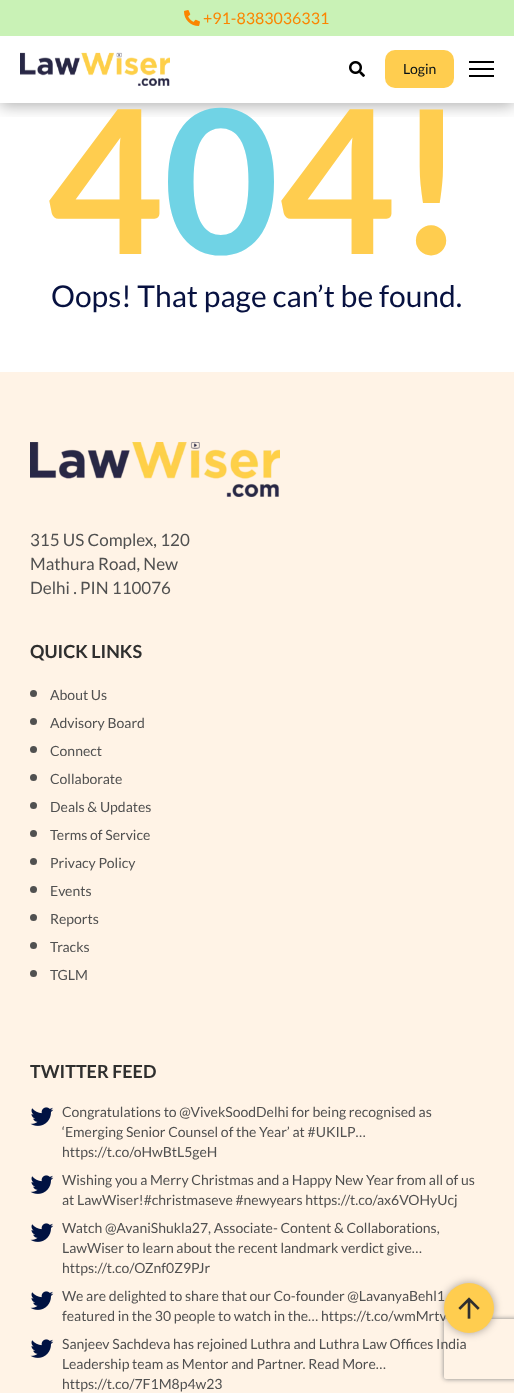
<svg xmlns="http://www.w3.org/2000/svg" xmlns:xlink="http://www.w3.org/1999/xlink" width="514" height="1393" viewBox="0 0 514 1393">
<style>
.cls-1{font:16px Lato;fill:#fb8500}
.cls-2{font:14px Lato;fill:#040f16}
.cls-3{font:bold 200px Lato;fill:#ffcd4f}
.cls-4{font:bold 200px Lato;fill:#70d3e5}
.cls-5{font:30px Lato;fill:#071140}
.cls-6{font:17px Lato;fill:#505050}
.cls-7{font:bold 18px Lato;fill:#2f2f2f}
.cls-8{font:14px Lato;fill:#505050}
</style>
<defs>
<clipPath id="clip1"><rect x="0" y="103" width="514" height="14"/></clipPath>
<clipPath id="clip2"><path d="M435 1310H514V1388H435ZM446 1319H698C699 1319 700 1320 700 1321V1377C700 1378 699 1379 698 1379H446C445 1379 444 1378 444 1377V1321C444 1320 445 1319 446 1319Z" clip-rule="evenodd"/></clipPath>
</defs>
<rect width="100%" height="100%" fill="#ffffff"/>
<g clip-path="url(#clip1)">
<rect fill="#000000" fill-opacity="0.3" filter="blur(7.5px)" x="0" y="3" width="514" height="103"/>
</g>
<image xlink:href="image0.png" x="20" y="52" width="150" height="34"/>
<rect fill="#c9f2b6" x="0" y="0" width="514" height="36"/>
<image xlink:href="image1.png" x="184" y="10" width="16" height="16"/>
<image xlink:href="image2.png" x="349" y="61" width="16" height="16"/>
<rect fill="#ffcd4f" x="385" y="50" width="69" height="38" rx="10"/>
<rect fill="#000000" x="469" y="61" width="25" height="2"/>
<rect fill="#000000" x="469" y="68" width="25" height="2"/>
<rect fill="#000000" x="469" y="75" width="25" height="2"/>
<rect fill="#fff3e6" x="0" y="372" width="514" height="1021"/>
<image xlink:href="image3.png" x="30" y="442" width="250" height="55"/>
<circle fill="#505050" cx="33.5" cy="693.5" r="3.5"/>
<circle fill="#505050" cx="33.5" cy="721.5" r="3.5"/>
<circle fill="#505050" cx="33.5" cy="749.5" r="3.5"/>
<circle fill="#505050" cx="33.5" cy="777.5" r="3.5"/>
<circle fill="#505050" cx="33.5" cy="805.5" r="3.5"/>
<circle fill="#505050" cx="33.5" cy="833.5" r="3.5"/>
<circle fill="#505050" cx="33.5" cy="861.5" r="3.5"/>
<circle fill="#505050" cx="33.5" cy="889.5" r="3.5"/>
<circle fill="#505050" cx="33.5" cy="917.5" r="3.5"/>
<circle fill="#505050" cx="33.5" cy="945.5" r="3.5"/>
<circle fill="#505050" cx="33.5" cy="973.5" r="3.5"/>
<image xlink:href="image4.png" x="30" y="1107" width="24" height="19"/>
<image xlink:href="image4.png" x="30" y="1175" width="24" height="19"/>
<image xlink:href="image4.png" x="30" y="1223" width="24" height="19"/>
<image xlink:href="image4.png" x="30" y="1291" width="24" height="19"/>
<image xlink:href="image4.png" x="30" y="1339" width="24" height="19"/>
<rect fill="#000000" fill-opacity="0.35" filter="blur(4px)" x="444" y="1283" width="50" height="50" rx="25"/>
<g clip-path="url(#clip2)">
<rect fill="#808080" filter="blur(2.5px)" x="444" y="1319" width="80" height="60" rx="2"/>
</g>
<text class="cls-1" x="203" y="24">+91-8383036331</text>
<text class="cls-2" x="403" y="74">Login</text>
<text class="cls-3" x="47" y="254">4</text>
<text class="cls-4" x="163" y="254">0</text>
<text class="cls-3" x="279" y="254">4!</text>
<text class="cls-5" x="51" y="307">Oops! That page can’t be found.</text>
<text class="cls-6"><tspan x="30" y="546">315 US Complex, 120</tspan><tspan x="30" y="570">Mathura Road, New</tspan><tspan x="30" y="594">Delhi . PIN 110076</tspan></text>
<text class="cls-7" x="30" y="658">QUICK LINKS</text>
<text class="cls-8" x="50" y="700">About Us</text>
<text class="cls-8" x="50" y="728">Advisory Board</text>
<text class="cls-8" x="50" y="756">Connect</text>
<text class="cls-8" x="50" y="784">Collaborate</text>
<text class="cls-8" x="50" y="812">Deals &amp; Updates</text>
<text class="cls-8" x="50" y="840">Terms of Service</text>
<text class="cls-8" x="50" y="868">Privacy Policy</text>
<text class="cls-8" x="50" y="896">Events</text>
<text class="cls-8" x="50" y="924">Reports</text>
<text class="cls-8" x="50" y="952">Tracks</text>
<text class="cls-8" x="50" y="980">TGLM</text>
<text class="cls-7" x="30" y="1078">TWITTER FEED</text>
<text class="cls-8"><tspan x="62" y="1117">Congratulations to @VivekSoodDelhi for being recognised as</tspan><tspan x="62" y="1137">‘Emerging Senior Counsel of the Year’ at #UKILP…</tspan><tspan x="62" y="1157">https://t.co/oHwBtL5geH</tspan></text>
<text class="cls-8"><tspan x="62" y="1185">Wishing you a Merry Christmas and a Happy New Year from all of us</tspan><tspan x="62" y="1205">at LawWiser!#christmaseve #newyears https://t.co/ax6VOHyUcj</tspan></text>
<text class="cls-8"><tspan x="62" y="1233">Watch @AvaniShukla27, Associate- Content &amp; Collaborations,</tspan><tspan x="62" y="1253">LawWiser to learn about the recent landmark verdict give…</tspan><tspan x="62" y="1273">https://t.co/OZnf0Z9PJr</tspan></text>
<text class="cls-8"><tspan x="62" y="1301">We are delighted to share that our Co-founder @LavanyaBehl1</tspan><tspan x="62" y="1321">featured in the 30 people to watch in the… https://t.co/wmMrtv</tspan></text>
<text class="cls-8"><tspan x="62" y="1349">Sanjeev Sachdeva has rejoined Luthra and Luthra Law Offices India</tspan><tspan x="62" y="1369">Leadership team as Mentor and Partner. Read More…</tspan><tspan x="62" y="1389">https://t.co/7F1M8p4w23</tspan></text>
<circle fill="#ffcd4f" cx="469" cy="1308" r="25"/>
<image xlink:href="image5.png" x="458" y="1297" width="22" height="22"/>
</svg>
